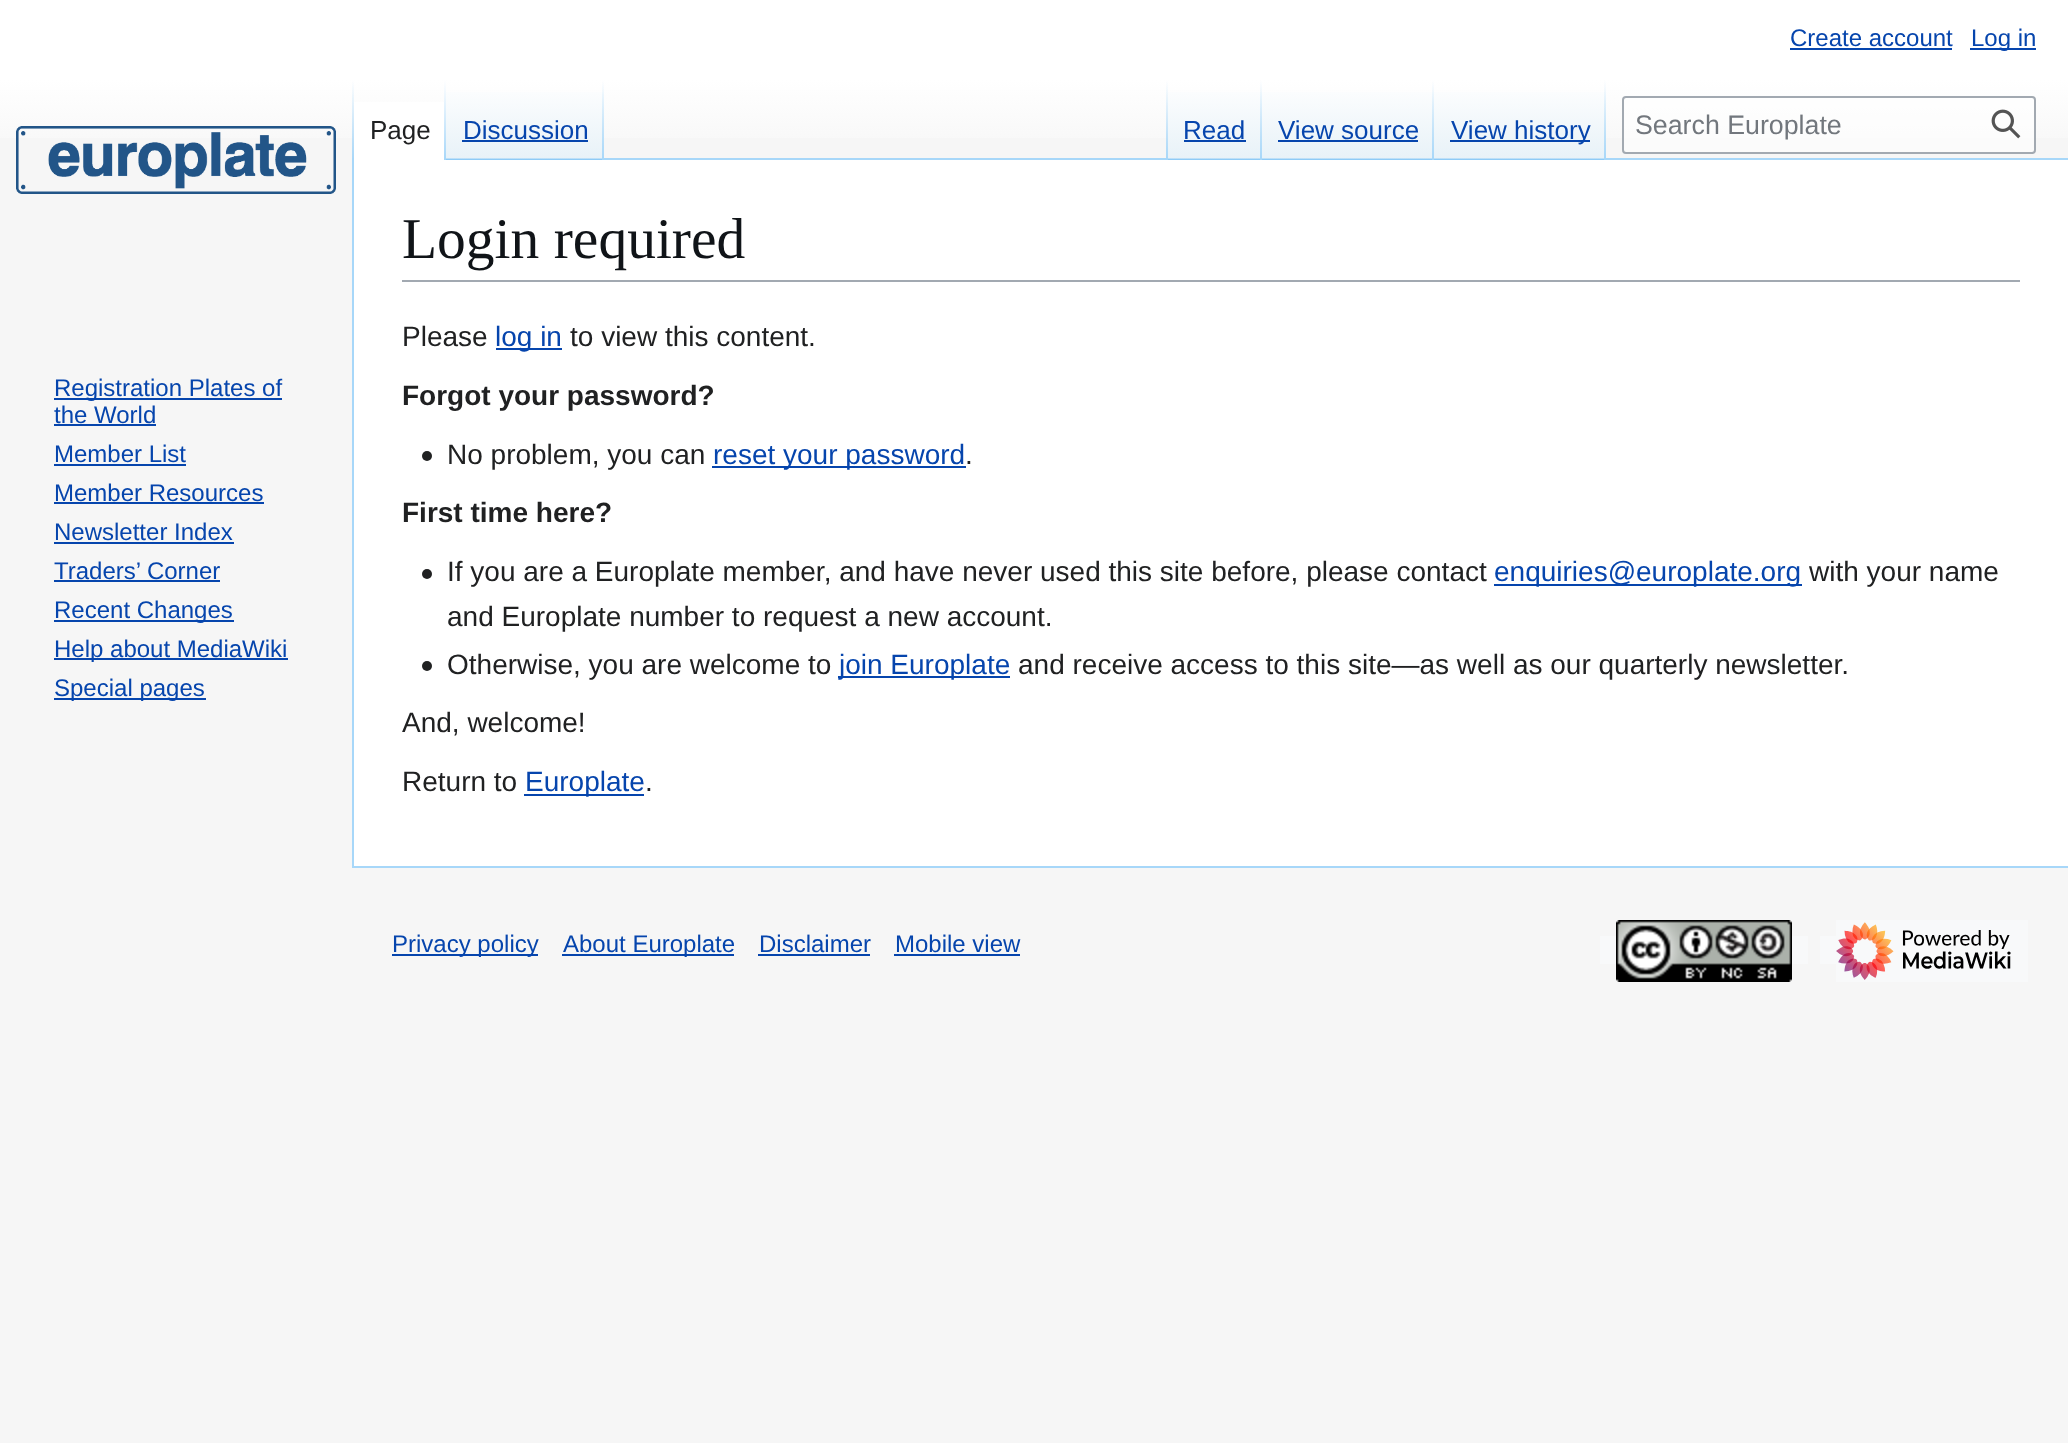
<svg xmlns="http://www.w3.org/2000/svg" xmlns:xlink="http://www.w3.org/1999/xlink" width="2068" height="1443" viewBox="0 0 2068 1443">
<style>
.cls-1{font:24px Liberation Sans;fill:#0645ad}
.cls-2{font:26px Liberation Sans;fill:#202122}
.cls-3{font:26px Liberation Sans;fill:#0645ad}
.cls-4{font:26.75px Liberation Sans;fill:#72777d}
.cls-5{font:57.5px Liberation Serif;fill:#101418}
.cls-6{font:28px Liberation Sans;fill:#202122}
.cls-7{font:28px Liberation Sans;fill:#0645ad}
.cls-8{font:bold 28px Liberation Sans;fill:#202122}
</style>
<defs>
<linearGradient id="g1" gradientUnits="userSpaceOnUse" x1="1034" y1="0" x2="1034" y2="160"><stop offset="0.5" stop-color="#ffffff"/><stop offset="1" stop-color="#f6f6f6"/></linearGradient>
<linearGradient id="g2" gradientUnits="userSpaceOnUse" x1="353" y1="80" x2="353" y2="160"><stop offset="0" stop-color="#a7d7f9" stop-opacity="0"/><stop offset="1" stop-color="#a7d7f9"/></linearGradient>
<linearGradient id="g3" gradientUnits="userSpaceOnUse" x1="445" y1="80" x2="445" y2="160"><stop offset="0" stop-color="#ffffff"/><stop offset="1" stop-color="#a7d7f9"/></linearGradient>
<linearGradient id="g4" gradientUnits="userSpaceOnUse" x1="525" y1="160" x2="525" y2="80"><stop offset="0" stop-color="#77c1f6"/><stop offset="0.03" stop-color="#e8f2f8"/><stop offset="1" stop-color="#ffffff"/></linearGradient>
<linearGradient id="g5" gradientUnits="userSpaceOnUse" x1="603" y1="80" x2="603" y2="160"><stop offset="0" stop-color="#a7d7f9" stop-opacity="0"/><stop offset="1" stop-color="#a7d7f9"/></linearGradient>
<linearGradient id="g6" gradientUnits="userSpaceOnUse" x1="1167" y1="80" x2="1167" y2="160"><stop offset="0" stop-color="#a7d7f9" stop-opacity="0"/><stop offset="1" stop-color="#a7d7f9"/></linearGradient>
<linearGradient id="g7" gradientUnits="userSpaceOnUse" x1="1215" y1="160" x2="1215" y2="80"><stop offset="0" stop-color="#77c1f6"/><stop offset="0.03" stop-color="#e8f2f8"/><stop offset="1" stop-color="#ffffff"/></linearGradient>
<linearGradient id="g8" gradientUnits="userSpaceOnUse" x1="1261" y1="80" x2="1261" y2="160"><stop offset="0" stop-color="#a7d7f9" stop-opacity="0"/><stop offset="1" stop-color="#a7d7f9"/></linearGradient>
<linearGradient id="g9" gradientUnits="userSpaceOnUse" x1="1348" y1="160" x2="1348" y2="80"><stop offset="0" stop-color="#77c1f6"/><stop offset="0.03" stop-color="#e8f2f8"/><stop offset="1" stop-color="#ffffff"/></linearGradient>
<linearGradient id="g10" gradientUnits="userSpaceOnUse" x1="1433" y1="80" x2="1433" y2="160"><stop offset="0" stop-color="#a7d7f9" stop-opacity="0"/><stop offset="1" stop-color="#a7d7f9"/></linearGradient>
<linearGradient id="g11" gradientUnits="userSpaceOnUse" x1="1520" y1="160" x2="1520" y2="80"><stop offset="0" stop-color="#77c1f6"/><stop offset="0.03" stop-color="#e8f2f8"/><stop offset="1" stop-color="#ffffff"/></linearGradient>
<linearGradient id="g12" gradientUnits="userSpaceOnUse" x1="1605" y1="80" x2="1605" y2="160"><stop offset="0" stop-color="#a7d7f9" stop-opacity="0"/><stop offset="1" stop-color="#a7d7f9"/></linearGradient>
</defs>
<rect width="100%" height="100%" fill="#f6f6f6"/>
<rect fill="url(#g1)" x="0" y="0" width="2068" height="138"/>
<rect fill="#0645ad" x="1790" y="48" width="162" height="2"/>
<rect fill="#0645ad" x="1970" y="48" width="66" height="2"/>
<rect fill="#a7d7f9" x="352" y="866" width="1716" height="2"/>
<rect fill="#a7d7f9" x="352" y="158" width="2" height="710"/>
<rect fill="url(#g2)" x="352" y="80" width="2" height="80"/>
<rect fill="#ffffff" x="354" y="102" width="90" height="58"/>
<rect fill="url(#g3)" x="444" y="80" width="2" height="80"/>
<rect fill="url(#g4)" x="446" y="92" width="158" height="68"/>
<rect fill="url(#g5)" x="602" y="80" width="2" height="80"/>
<rect fill="#0645ad" x="462" y="140" width="126" height="2"/>
<rect fill="#a7d7f9" x="604" y="158" width="1464" height="2"/>
<rect fill="url(#g6)" x="1166" y="80" width="2" height="80"/>
<rect fill="url(#g7)" x="1168" y="92" width="94" height="68"/>
<rect fill="url(#g8)" x="1260" y="80" width="2" height="80"/>
<rect fill="#0645ad" x="1184" y="140" width="62" height="2"/>
<rect fill="url(#g9)" x="1262" y="92" width="172" height="68"/>
<rect fill="url(#g10)" x="1432" y="80" width="2" height="80"/>
<rect fill="#0645ad" x="1278" y="140" width="140" height="2"/>
<rect fill="url(#g11)" x="1434" y="92" width="172" height="68"/>
<rect fill="url(#g12)" x="1604" y="80" width="2" height="80"/>
<rect fill="#0645ad" x="1450" y="140" width="140" height="2"/>
<rect fill="#ffffff" fill-opacity="0.5" stroke="#a2a9b1" stroke-width="2" x="1623" y="97" width="412" height="56" rx="3"/>
<image xlink:href="image0.png" x="1991" y="109" width="30" height="30"/>
<image xlink:href="image1.png" x="16" y="126" width="320" height="68"/>
<rect fill="#0645ad" x="54" y="398" width="228" height="2"/>
<rect fill="#0645ad" x="54" y="424" width="102" height="2"/>
<rect fill="#0645ad" x="54" y="464" width="132" height="2"/>
<rect fill="#0645ad" x="54" y="502" width="210" height="2"/>
<rect fill="#0645ad" x="54" y="542" width="180" height="2"/>
<rect fill="#0645ad" x="54" y="580" width="166" height="2"/>
<rect fill="#0645ad" x="54" y="620" width="180" height="2"/>
<rect fill="#0645ad" x="54" y="658" width="234" height="2"/>
<rect fill="#0645ad" x="54" y="698" width="152" height="2"/>
<rect fill="#ffffff" x="354" y="160" width="1714" height="706"/>
<rect fill="#a2a9b1" x="402" y="280" width="1618" height="2"/>
<rect fill="#0645ad" x="496" y="348" width="66" height="2"/>
<image xlink:href="image2.png" x="422" y="451" width="10" height="10"/>
<rect fill="#0645ad" x="712" y="466" width="254" height="2"/>
<image xlink:href="image2.png" x="422" y="569" width="10" height="10"/>
<rect fill="#0645ad" x="1494" y="584" width="308" height="2"/>
<image xlink:href="image2.png" x="422" y="661" width="10" height="10"/>
<rect fill="#0645ad" x="838" y="676" width="172" height="2"/>
<rect fill="#0645ad" x="524" y="794" width="120" height="2"/>
<rect fill="#0645ad" x="392" y="954" width="146" height="2"/>
<rect fill="#0645ad" x="562" y="954" width="172" height="2"/>
<rect fill="#0645ad" x="758" y="954" width="112" height="2"/>
<rect fill="#0645ad" x="894" y="954" width="126" height="2"/>
<rect fill="#f8f9fa" x="1600" y="936" width="208" height="28"/>
<image xlink:href="image3.png" x="1616" y="920" width="176" height="62"/>
<rect fill="#f8f9fa" x="1836" y="920" width="192" height="62"/>
<rect fill="#f8f9fa" x="1820" y="936" width="16" height="28"/>
<image xlink:href="image4.png" x="1836" y="922" width="175" height="58"/>
<text class="cls-1" x="1790" y="46">Create account</text>
<text class="cls-1" x="1971" y="46">Log in</text>
<text class="cls-2" x="370" y="139">Page</text>
<text class="cls-3" x="463" y="139">Discussion</text>
<text class="cls-3" x="1183" y="139">Read</text>
<text class="cls-3" x="1278" y="139">View source</text>
<text class="cls-3" x="1451" y="139">View history</text>
<text class="cls-4" x="1635" y="134">Search Europlate</text>
<text class="cls-1"><tspan x="54" y="396">Registration Plates of</tspan><tspan x="54" y="423">the World</tspan><tspan x="54" y="462">Member List</tspan><tspan x="54" y="501">Member Resources</tspan><tspan x="54" y="540">Newsletter Index</tspan><tspan x="54" y="579">Traders’ Corner</tspan><tspan x="54" y="618">Recent Changes</tspan><tspan x="54" y="657">Help about MediaWiki</tspan><tspan x="54" y="696">Special pages</tspan></text>
<text class="cls-5" x="402" y="258">Login required</text>
<text class="cls-6" x="402" y="346">Please</text>
<text class="cls-7" x="495" y="346">log in</text>
<text class="cls-6" x="570" y="346">to view this content.</text>
<text class="cls-8" x="402" y="405">Forgot your password?</text>
<text class="cls-6" x="447" y="464">No problem, you can</text>
<text class="cls-7" x="713" y="464">reset your password</text>
<text class="cls-6" x="965" y="464">.</text>
<text class="cls-8" x="402" y="522">First time here?</text>
<text class="cls-6" x="447" y="581">If you are a Europlate member, and have never used this site before, please contact</text>
<text class="cls-7" x="1494" y="581">enquiries@europlate.org</text>
<text class="cls-6" x="1809" y="581">with your name</text>
<text class="cls-6"><tspan x="447" y="626">and Europlate number to request a new account.</tspan><tspan x="447" y="674">Otherwise, you are welcome to</tspan></text>
<text class="cls-7" x="839" y="674">join Europlate</text>
<text class="cls-6" x="1018" y="674">and receive access to this site—as well as our quarterly newsletter.</text>
<text class="cls-6" x="402" y="732">And, welcome!</text>
<text class="cls-6" x="402" y="791">Return to</text>
<text class="cls-7" x="525" y="791">Europlate</text>
<text class="cls-6" x="645" y="791">.</text>
<text class="cls-1" x="392" y="952">Privacy policy</text>
<text class="cls-1" x="563" y="952">About Europlate</text>
<text class="cls-1" x="759" y="952">Disclaimer</text>
<text class="cls-1" x="895" y="952">Mobile view</text>
</svg>
